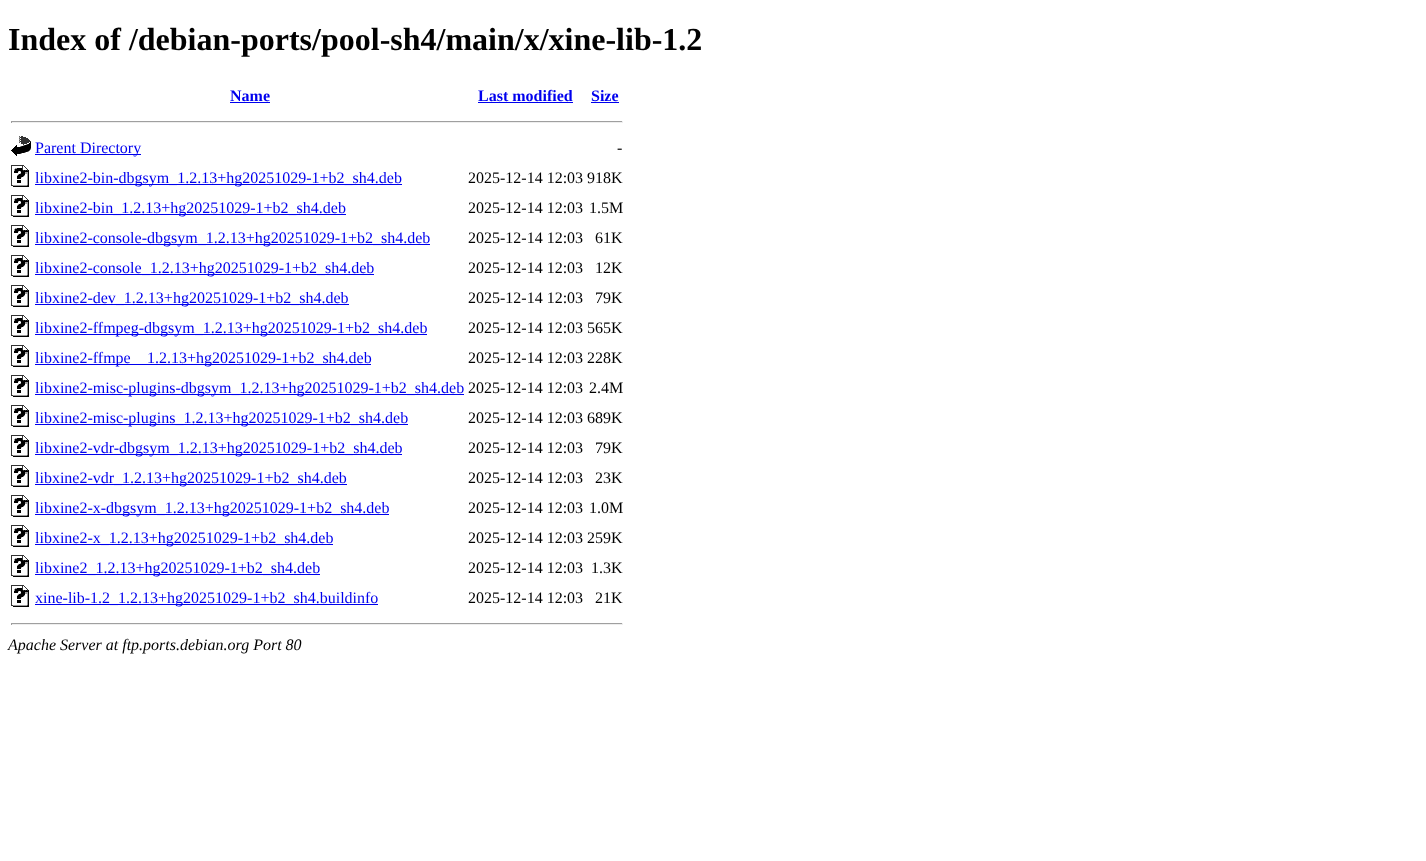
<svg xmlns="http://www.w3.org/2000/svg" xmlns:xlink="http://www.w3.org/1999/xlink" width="1426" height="861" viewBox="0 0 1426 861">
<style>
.cls-1{font:bold 32px Liberation Serif;fill:#000000}
.cls-2{font:bold 16px Liberation Serif;fill:#0000ee}
.cls-3{font:16px Liberation Serif;fill:#0000ee}
.cls-4{font:16px Liberation Serif;fill:#000000}
.cls-5{font:italic 16px Liberation Serif;fill:#000000}
</style>
<rect width="100%" height="100%" fill="#ffffff"/>
<rect fill="#0000ee" x="230" y="102" width="40" height="1"/>
<rect fill="#0000ee" x="478" y="102" width="95" height="1"/>
<rect fill="#0000ee" x="591" y="102" width="28" height="1"/>
<rect fill="#9f9f9f" x="11" y="121" width="612" height="1"/>
<rect fill="#eeeeee" x="622" y="121" width="1" height="2"/>
<rect fill="#eeeeee" x="11" y="122" width="612" height="1"/>
<rect fill="#9f9f9f" x="11" y="121" width="1" height="2"/>
<image xlink:href="image0.png" x="11" y="136" width="20" height="20"/>
<rect fill="#0000ee" x="35" y="154" width="106" height="1"/>
<image xlink:href="image1.png" x="11" y="165" width="18" height="22"/>
<rect fill="#0000ee" x="35" y="184" width="367" height="1"/>
<image xlink:href="image1.png" x="11" y="195" width="18" height="22"/>
<rect fill="#0000ee" x="35" y="214" width="311" height="1"/>
<image xlink:href="image1.png" x="11" y="225" width="18" height="22"/>
<rect fill="#0000ee" x="35" y="244" width="395" height="1"/>
<image xlink:href="image1.png" x="11" y="255" width="18" height="22"/>
<rect fill="#0000ee" x="35" y="274" width="339" height="1"/>
<image xlink:href="image1.png" x="11" y="285" width="18" height="22"/>
<rect fill="#0000ee" x="35" y="304" width="314" height="1"/>
<image xlink:href="image1.png" x="11" y="315" width="18" height="22"/>
<rect fill="#0000ee" x="35" y="334" width="392" height="1"/>
<image xlink:href="image1.png" x="11" y="345" width="18" height="22"/>
<rect fill="#0000ee" x="35" y="364" width="336" height="1"/>
<image xlink:href="image1.png" x="11" y="375" width="18" height="22"/>
<rect fill="#0000ee" x="35" y="394" width="429" height="1"/>
<image xlink:href="image1.png" x="11" y="405" width="18" height="22"/>
<rect fill="#0000ee" x="35" y="424" width="373" height="1"/>
<image xlink:href="image1.png" x="11" y="435" width="18" height="22"/>
<rect fill="#0000ee" x="35" y="454" width="367" height="1"/>
<image xlink:href="image1.png" x="11" y="465" width="18" height="22"/>
<rect fill="#0000ee" x="35" y="484" width="312" height="1"/>
<image xlink:href="image1.png" x="11" y="495" width="18" height="22"/>
<rect fill="#0000ee" x="35" y="514" width="354" height="1"/>
<image xlink:href="image1.png" x="11" y="525" width="18" height="22"/>
<rect fill="#0000ee" x="35" y="544" width="298" height="1"/>
<image xlink:href="image1.png" x="11" y="555" width="18" height="22"/>
<rect fill="#0000ee" x="35" y="574" width="285" height="1"/>
<image xlink:href="image1.png" x="11" y="585" width="18" height="22"/>
<rect fill="#0000ee" x="35" y="604" width="343" height="1"/>
<rect fill="#9f9f9f" x="11" y="623" width="612" height="1"/>
<rect fill="#eeeeee" x="622" y="623" width="1" height="2"/>
<rect fill="#eeeeee" x="11" y="624" width="612" height="1"/>
<rect fill="#9f9f9f" x="11" y="623" width="1" height="2"/>
<text class="cls-1" x="8" y="50">Index of /debian-ports/pool-sh4/main/x/xine-lib-1.2</text>
<text class="cls-2" x="230" y="101">Name</text>
<text class="cls-2" x="478" y="101">Last modified</text>
<text class="cls-2" x="591" y="101">Size</text>
<text class="cls-3" x="35" y="153">Parent Directory</text>
<text class="cls-4" x="617" y="153">-</text>
<text class="cls-3" x="35" y="183">libxine2-bin-dbgsym_1.2.13+hg20251029-1+b2_sh4.deb</text>
<text class="cls-4" x="468" y="183">2025-12-14 12:03 918K</text>
<text class="cls-3" x="35" y="213">libxine2-bin_1.2.13+hg20251029-1+b2_sh4.deb</text>
<text class="cls-4" x="468" y="213">2025-12-14 12:03</text>
<text class="cls-4" x="589" y="213">1.5M</text>
<text class="cls-3" x="35" y="243">libxine2-console-dbgsym_1.2.13+hg20251029-1+b2_sh4.deb</text>
<text class="cls-4" x="468" y="243">2025-12-14 12:03</text>
<text class="cls-4" x="595" y="243">61K</text>
<text class="cls-3" x="35" y="273">libxine2-console_1.2.13+hg20251029-1+b2_sh4.deb</text>
<text class="cls-4" x="468" y="273">2025-12-14 12:03</text>
<text class="cls-4" x="595" y="273">12K</text>
<text class="cls-3" x="35" y="303">libxine2-dev_1.2.13+hg20251029-1+b2_sh4.deb</text>
<text class="cls-4" x="468" y="303">2025-12-14 12:03</text>
<text class="cls-4" x="595" y="303">79K</text>
<text class="cls-3" x="35" y="333">libxine2-ffmpeg-dbgsym_1.2.13+hg20251029-1+b2_sh4.deb</text>
<text class="cls-4" x="468" y="333">2025-12-14 12:03 565K</text>
<text class="cls-3" x="35" y="363">libxine2-ffmpe</text>
<text class="cls-3" x="147" y="363">1.2.13+hg20251029-1+b2_sh4.deb</text>
<text class="cls-4" x="468" y="363">2025-12-14 12:03 228K</text>
<text class="cls-3" x="35" y="393">libxine2-misc-plugins-dbgsym_1.2.13+hg20251029-1+b2_sh4.deb</text>
<text class="cls-4" x="468" y="393">2025-12-14 12:03</text>
<text class="cls-4" x="589" y="393">2.4M</text>
<text class="cls-3" x="35" y="423">libxine2-misc-plugins_1.2.13+hg20251029-1+b2_sh4.deb</text>
<text class="cls-4" x="468" y="423">2025-12-14 12:03 689K</text>
<text class="cls-3" x="35" y="453">libxine2-vdr-dbgsym_1.2.13+hg20251029-1+b2_sh4.deb</text>
<text class="cls-4" x="468" y="453">2025-12-14 12:03</text>
<text class="cls-4" x="595" y="453">79K</text>
<text class="cls-3" x="35" y="483">libxine2-vdr_1.2.13+hg20251029-1+b2_sh4.deb</text>
<text class="cls-4" x="468" y="483">2025-12-14 12:03</text>
<text class="cls-4" x="595" y="483">23K</text>
<text class="cls-3" x="35" y="513">libxine2-x-dbgsym_1.2.13+hg20251029-1+b2_sh4.deb</text>
<text class="cls-4" x="468" y="513">2025-12-14 12:03</text>
<text class="cls-4" x="589" y="513">1.0M</text>
<text class="cls-3" x="35" y="543">libxine2-x_1.2.13+hg20251029-1+b2_sh4.deb</text>
<text class="cls-4" x="468" y="543">2025-12-14 12:03 259K</text>
<text class="cls-3" x="35" y="573">libxine2_1.2.13+hg20251029-1+b2_sh4.deb</text>
<text class="cls-4" x="468" y="573">2025-12-14 12:03</text>
<text class="cls-4" x="591" y="573">1.3K</text>
<text class="cls-3" x="35" y="603">xine-lib-1.2_1.2.13+hg20251029-1+b2_sh4.buildinfo</text>
<text class="cls-4" x="468" y="603">2025-12-14 12:03</text>
<text class="cls-4" x="595" y="603">21K</text>
<text class="cls-5" x="8" y="650">Apache Server at ftp.ports.debian.org Port 80</text>
</svg>
